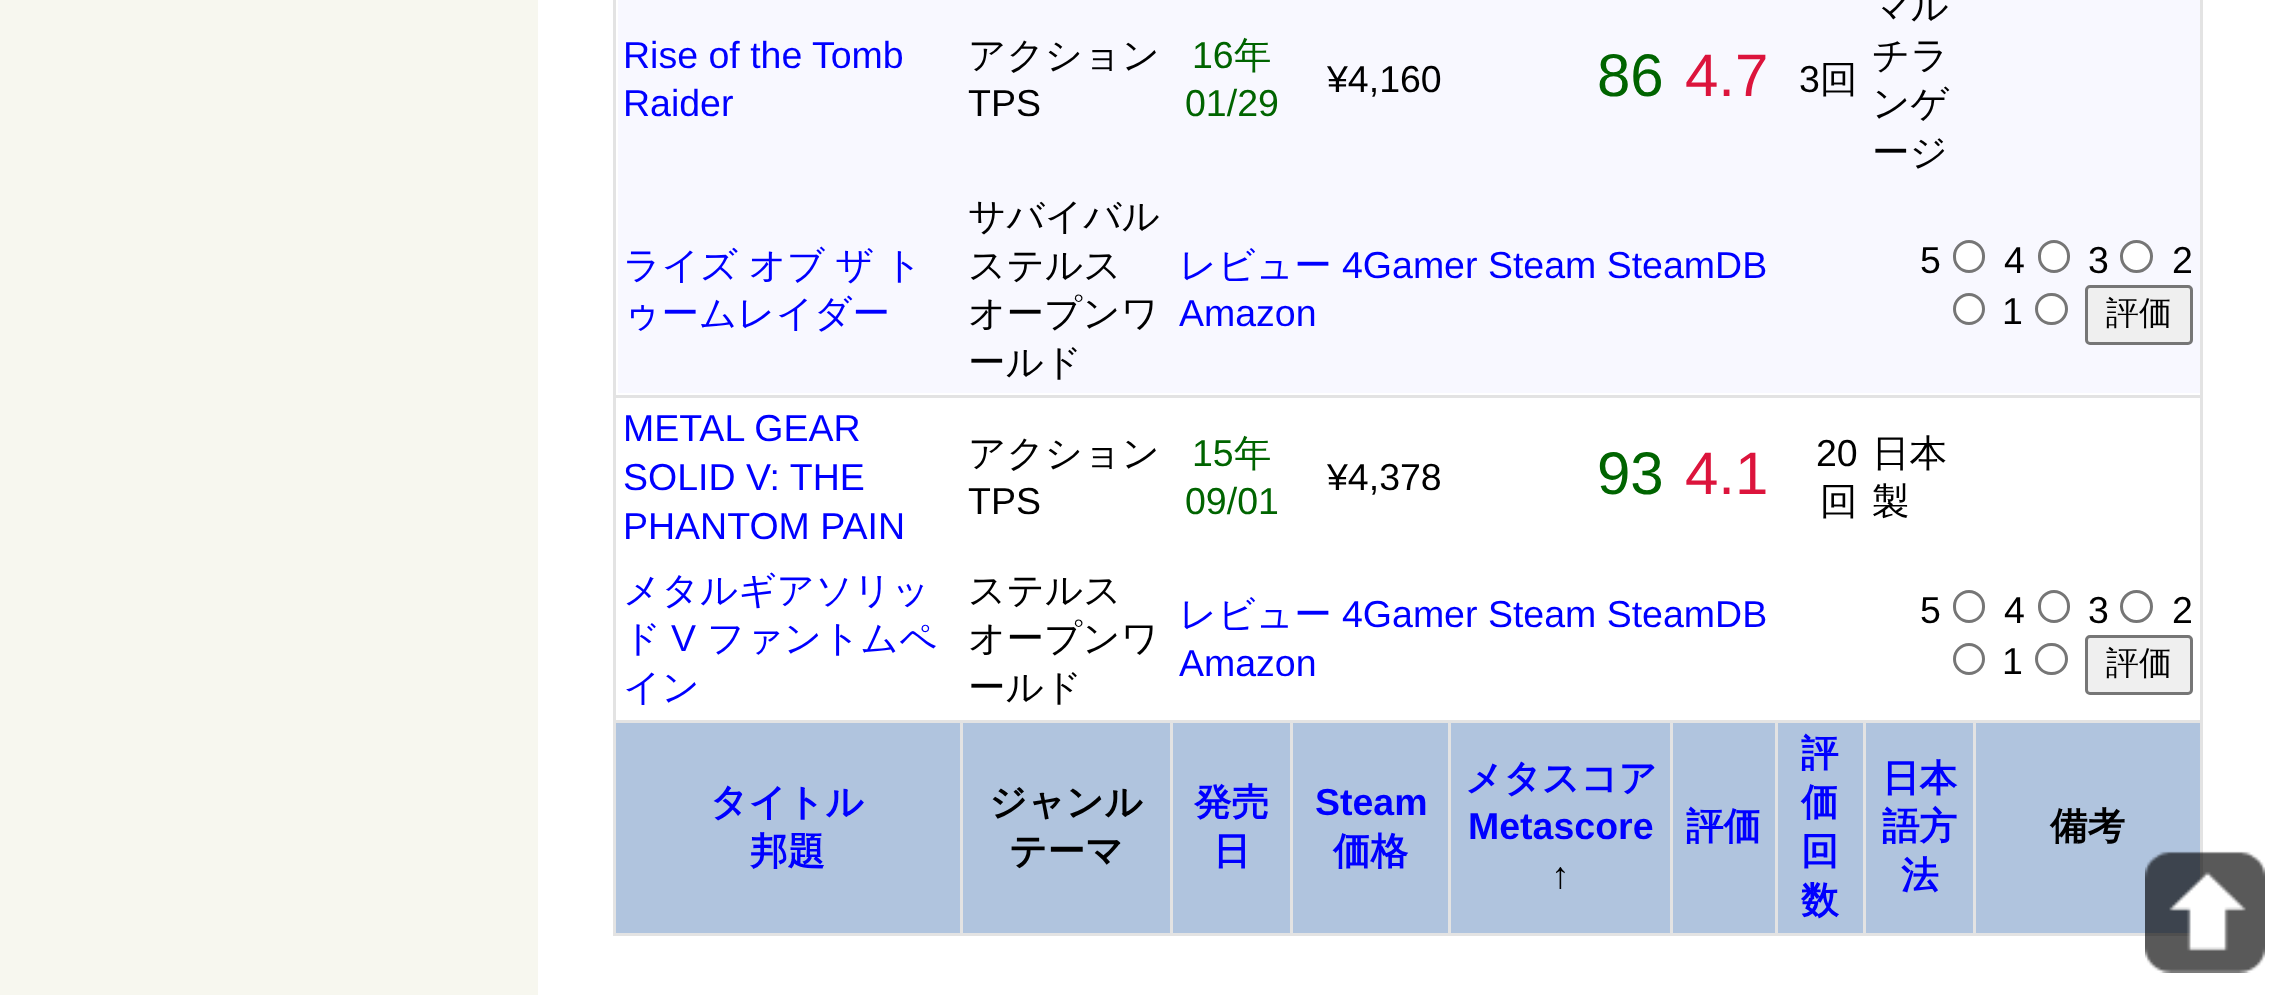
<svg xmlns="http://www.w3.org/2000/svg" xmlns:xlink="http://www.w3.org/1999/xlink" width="2277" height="995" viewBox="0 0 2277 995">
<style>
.cls-1{font:37.5px Liberation Sans;fill:#0000ff}
.cls-2{font:500 37.5px WenQuanYi Zen Hei;fill:#000000}
.cls-3{font:37.5px Liberation Sans;fill:#000000}
.cls-4{font:37.5px Liberation Sans;fill:#006400}
.cls-5{font:500 37.5px WenQuanYi Zen Hei;fill:#006400}
.cls-6{font:60px Liberation Sans;fill:#006400}
.cls-7{font:60px Liberation Sans;fill:#dc143c}
.cls-8{font:500 37.5px WenQuanYi Zen Hei;fill:#0000ff}
.cls-9{font:500 33px WenQuanYi Zen Hei;fill:#000000}
.cls-10{font:bold 37.5px WenQuanYi Zen Hei;fill:#0000ff}
.cls-11{font:bold 37.5px WenQuanYi Zen Hei;fill:#000000}
.cls-12{font:bold 37.5px Liberation Sans;fill:#0000ff}
.cls-13{font:bold 37.5px Liberation Sans;fill:#000000}
</style>
<rect width="100%" height="100%" fill="#f7f7ef"/>
<rect fill="#ffffff" x="538" y="0" width="1739" height="995"/>
<rect fill="#e3e3e3" x="2200" y="0" width="3" height="884"/>
<rect fill="#e3e3e3" x="613" y="933" width="1578" height="3"/>
<rect fill="#e3e3e3" x="613" y="0" width="3" height="935"/>
<rect fill="#f8f8ff" x="618" y="0" width="1582" height="393"/>
<rect fill="#e3e3e3" x="613" y="395" width="1590" height="3"/>
<rect fill="#ffffff" stroke="#767676" stroke-width="3" x="1954.5" y="241.5" width="29" height="30" rx="14.5"/>
<rect fill="#ffffff" stroke="#767676" stroke-width="3" x="2039.5" y="241.5" width="29" height="30" rx="14.5"/>
<circle fill="#ffffff" stroke="#767676" stroke-width="3" cx="2136.5" cy="256.5" r="15"/>
<circle fill="#ffffff" stroke="#767676" stroke-width="3" cx="1969" cy="309" r="14.5"/>
<rect fill="#ffffff" stroke="#767676" stroke-width="3" x="2036.5" y="294.5" width="30" height="29" rx="14.5"/>
<rect fill="#efefef" stroke="#767676" stroke-width="3" x="2086.5" y="286.5" width="105" height="57" rx="3.5"/>
<rect fill="#e3e3e3" x="613" y="720" width="1590" height="3"/>
<rect fill="none" stroke="#767676" stroke-width="3" x="1954.5" y="591.5" width="29" height="30" rx="14.5"/>
<rect fill="none" stroke="#767676" stroke-width="3" x="2039.5" y="591.5" width="29" height="30" rx="14.5"/>
<circle fill="none" stroke="#767676" stroke-width="3" cx="2136.5" cy="606.5" r="15"/>
<circle fill="none" stroke="#767676" stroke-width="3" cx="1969" cy="659" r="14.5"/>
<rect fill="none" stroke="#767676" stroke-width="3" x="2036.5" y="644.5" width="30" height="29" rx="14.5"/>
<rect fill="#efefef" stroke="#767676" stroke-width="3" x="2086.5" y="636.5" width="105" height="57" rx="3.5"/>
<rect fill="#b0c4de" x="616" y="723" width="1584" height="210"/>
<rect fill="#e3e3e3" x="960" y="720" width="3" height="215"/>
<rect fill="#e3e3e3" x="1170" y="720" width="3" height="215"/>
<rect fill="#e3e3e3" x="1290" y="720" width="3" height="215"/>
<rect fill="#e3e3e3" x="1448" y="720" width="3" height="215"/>
<rect fill="#e3e3e3" x="1670" y="720" width="3" height="215"/>
<rect fill="#e3e3e3" x="1775" y="720" width="3" height="215"/>
<rect fill="#e3e3e3" x="1863" y="720" width="3" height="215"/>
<rect fill="#e3e3e3" x="1973" y="720" width="3" height="215"/>
<image xlink:href="image0.png" x="2145" y="851" width="120" height="122"/>
<text class="cls-1"><tspan x="623" y="68">Rise of the Tomb</tspan><tspan x="623" y="116">Raider</tspan></text>
<text class="cls-2" x="968" y="68">アクション</text>
<text class="cls-3" x="968" y="116">TPS</text>
<text class="cls-4" x="1192" y="68">16</text>
<text class="cls-5" x="1234" y="68">年</text>
<text class="cls-4" x="1185" y="116">01/29</text>
<text class="cls-3" x="1327" y="92">¥4,160</text>
<text class="cls-6" x="1597" y="96">86</text>
<text class="cls-7" x="1685" y="96">4.7</text>
<text class="cls-3" x="1799" y="92">3</text>
<text class="cls-2" x="1820" y="92">回</text>
<text class="cls-2"><tspan x="1872" y="19">マル</tspan><tspan x="1872" y="68">チラ</tspan><tspan x="1872" y="116">ンゲ</tspan><tspan x="1872" y="165">ージ</tspan></text>
<text class="cls-8"><tspan x="623" y="278" word-spacing="-1">ライズ オブ ザ ト</tspan><tspan x="623" y="326">ゥームレイダー</tspan></text>
<text class="cls-2"><tspan x="968" y="229">サバイバル</tspan><tspan x="968" y="278">ステルス</tspan><tspan x="968" y="326">オープンワ</tspan><tspan x="968" y="375">ールド</tspan></text>
<text class="cls-8" x="1179" y="278">レビュー</text>
<text class="cls-1" x="1342" y="278">4Gamer Steam SteamDB</text>
<text class="cls-1" x="1179" y="326">Amazon</text>
<text class="cls-3" x="1920" y="273">5</text>
<text class="cls-3" x="2004" y="273">4</text>
<text class="cls-3" x="2088" y="273">3</text>
<text class="cls-3" x="2172" y="273">2</text>
<text class="cls-3" x="2002" y="324">1</text>
<text class="cls-9" x="2106" y="324">評価</text>
<text class="cls-1"><tspan x="623" y="441">METAL GEAR</tspan><tspan x="623" y="490">SOLID V: THE</tspan><tspan x="623" y="539">PHANTOM PAIN</tspan></text>
<text class="cls-2" x="968" y="466">アクション</text>
<text class="cls-3" x="968" y="514">TPS</text>
<text class="cls-4" x="1192" y="466">15</text>
<text class="cls-5" x="1234" y="466">年</text>
<text class="cls-4" x="1185" y="514">09/01</text>
<text class="cls-3" x="1327" y="490">¥4,378</text>
<text class="cls-6" x="1597" y="494">93</text>
<text class="cls-7" x="1685" y="494">4.1</text>
<text class="cls-3" x="1816" y="466">20</text>
<text class="cls-2" x="1820" y="514">回</text>
<text class="cls-2"><tspan x="1872" y="466">日本</tspan><tspan x="1872" y="514">製</tspan></text>
<text class="cls-8"><tspan x="623" y="603">メタルギアソリッ</tspan><tspan x="623" y="651">ド</tspan></text>
<text class="cls-1" x="671" y="651">V</text>
<text class="cls-8" x="707" y="651">ファントムペ</text>
<text class="cls-8" x="623" y="700">イン</text>
<text class="cls-2"><tspan x="968" y="603">ステルス</tspan><tspan x="968" y="651">オープンワ</tspan><tspan x="968" y="700">ールド</tspan></text>
<text class="cls-8" x="1179" y="627">レビュー</text>
<text class="cls-1" x="1342" y="627">4Gamer Steam SteamDB</text>
<text class="cls-1" x="1179" y="676">Amazon</text>
<text class="cls-3" x="1920" y="623">5</text>
<text class="cls-3" x="2004" y="623">4</text>
<text class="cls-3" x="2088" y="623">3</text>
<text class="cls-3" x="2172" y="623">2</text>
<text class="cls-3" x="2002" y="674">1</text>
<text class="cls-9" x="2106" y="674">評価</text>
<text class="cls-10" x="710" y="815">タイトル</text>
<text class="cls-10" x="750" y="864">邦題</text>
<text class="cls-11" x="989" y="815">ジャンル</text>
<text class="cls-11" x="1009" y="864">テーマ</text>
<text class="cls-10" x="1194" y="815">発売</text>
<text class="cls-10" x="1213" y="864">日</text>
<text class="cls-12" x="1315" y="815">Steam</text>
<text class="cls-10" x="1333" y="864">価格</text>
<text class="cls-10" x="1465" y="791">メタスコア</text>
<text class="cls-12" x="1468" y="839">Metascore</text>
<text class="cls-13" x="1551" y="888">↑</text>
<text class="cls-10" x="1686" y="839">評価</text>
<text class="cls-10"><tspan x="1801" y="766">評</tspan><tspan x="1801" y="815">価</tspan><tspan x="1801" y="864">回</tspan><tspan x="1801" y="913">数</tspan></text>
<text class="cls-10"><tspan x="1882" y="791">日本</tspan><tspan x="1882" y="839">語方</tspan></text>
<text class="cls-10" x="1901" y="888">法</text>
<text class="cls-11" x="2050" y="839">備考</text>
</svg>
